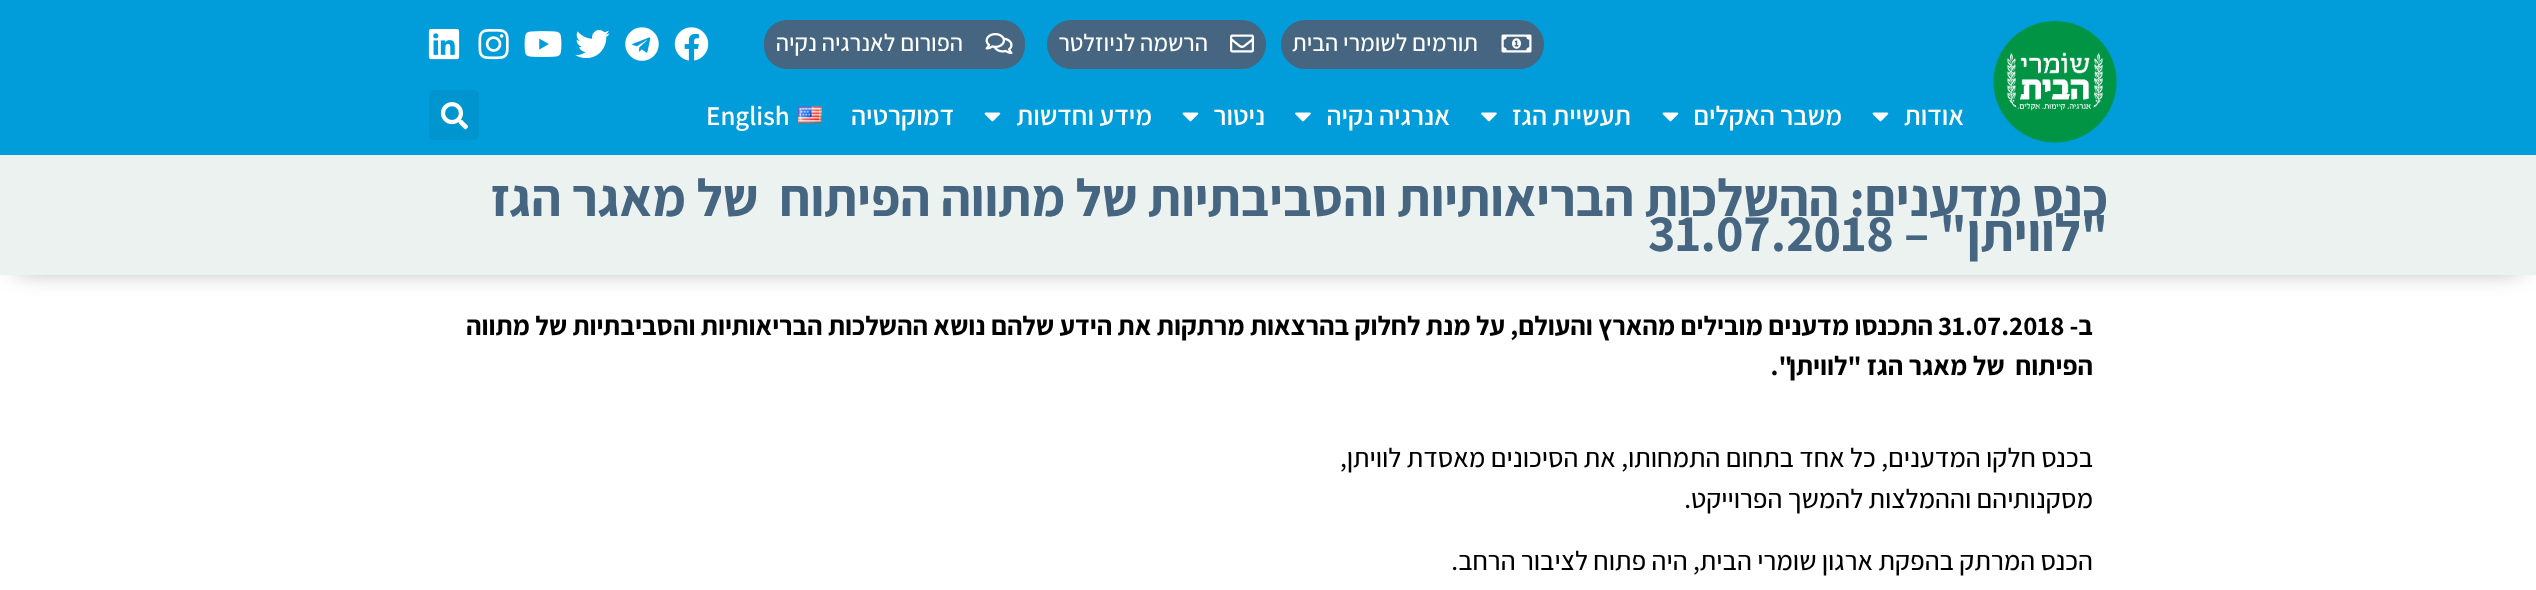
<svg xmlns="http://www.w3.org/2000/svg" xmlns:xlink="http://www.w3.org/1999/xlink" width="2536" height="590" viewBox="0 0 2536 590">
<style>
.cls-1{font:500 24px Assistant;direction:rtl;fill:#ffffff}
.cls-2{font:600 27px Assistant;direction:rtl;fill:#ffffff}
.cls-3{font:600 27px Assistant;fill:#ffffff}
.cls-4{font:bold 52.5px Assistant;direction:rtl;fill:#456580}
.cls-5{font:bold 52.5px Assistant;fill:#456580}
.cls-6{font:bold 27px Assistant;direction:rtl;fill:#000000}
.cls-7{font:bold 27px Assistant;fill:#000000}
.cls-8{font:500 27px Assistant;direction:rtl;fill:#000000}
</style>
<defs>
<clipPath id="clip1"><path d="M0 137H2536V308H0ZM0 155H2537V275H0Z" clip-rule="evenodd"/></clipPath>
</defs>
<rect width="100%" height="100%" fill="#ffffff"/>
<g clip-path="url(#clip1)">
<rect fill="#000000" fill-opacity="0.5" filter="blur(13.5px)" x="17" y="179" width="2503" height="87"/>
</g>
<rect fill="#019dda" x="0" y="0" width="2536" height="155"/>
<image xlink:href="image0.png" x="1993" y="21" width="124" height="122"/>
<rect fill="#456580" x="1281" y="20" width="263" height="49" rx="24.5"/>
<image xlink:href="image1.png" x="1501" y="34" width="31" height="19"/>
<rect fill="#456580" x="1047" y="20" width="219" height="49" rx="24.5"/>
<image xlink:href="image2.png" x="1230" y="34" width="24" height="19"/>
<rect fill="#456580" x="764" y="20" width="261" height="49" rx="23"/>
<image xlink:href="image3.png" x="985" y="33" width="28" height="21"/>
<image xlink:href="image4.png" x="674" y="27" width="35" height="34"/>
<image xlink:href="image5.png" x="625" y="27" width="34" height="34"/>
<image xlink:href="image6.png" x="575" y="30" width="35" height="29"/>
<image xlink:href="image7.png" x="524" y="31" width="38" height="26"/>
<image xlink:href="image8.png" x="478" y="29" width="31" height="31"/>
<image xlink:href="image9.png" x="428" y="29" width="32" height="31"/>
<image xlink:href="image10.png" x="1872" y="112" width="17" height="10"/>
<image xlink:href="image10.png" x="1662" y="112" width="17" height="10"/>
<image xlink:href="image11.png" x="1481" y="112" width="16" height="10"/>
<image xlink:href="image11.png" x="1295" y="112" width="16" height="10"/>
<image xlink:href="image10.png" x="1182" y="112" width="17" height="10"/>
<image xlink:href="image10.png" x="984" y="112" width="17" height="10"/>
<image xlink:href="image12.png" x="798" y="106" width="24" height="17"/>
<rect fill="#0195cf" x="429" y="90" width="50" height="50" rx="5"/>
<image xlink:href="image13.png" x="440" y="102" width="29" height="28"/>
<rect fill="#cbddd4" fill-opacity="0.38" x="0" y="155" width="2536" height="120"/>
<text class="cls-1" x="1478" y="51">תורמים לשומרי הבית</text>
<text class="cls-1" x="1208" y="51">הרשמה לניוזלטר</text>
<text class="cls-1" x="963" y="51">הפורום לאנרגיה נקיה</text>
<text class="cls-2" x="1964" y="125">אודות</text>
<text class="cls-2" x="1842" y="125">משבר האקלים</text>
<text class="cls-2" x="1631" y="125">תעשיית הגז</text>
<text class="cls-2" x="1450" y="125">אנרגיה נקיה</text>
<text class="cls-2" x="1265" y="125">ניטור</text>
<text class="cls-2" x="1152" y="125">מידע וחדשות</text>
<text class="cls-2" x="954" y="125">דמוקרטיה</text>
<text class="cls-3" x="706" y="125">English</text>
<text class="cls-4" xml:space="preserve"><tspan x="2108" y="216">כנס מדענים: ההשלכות הבריאותיות והסביבתיות של מתווה הפיתוח  של מאגר הגז</tspan><tspan x="2108" y="251">"לוויתן" –</tspan></text>
<text class="cls-5" x="1648" y="251">31.07.2018</text>
<text class="cls-6" x="2093" y="335">ב-</text>
<text class="cls-7" x="1938" y="335">31.07.2018</text>
<text class="cls-6" x="1933" y="335">התכנסו מדענים מובילים מהארץ והעולם, על מנת לחלוק בהרצאות מרתקות את הידע שלהם נושא ההשלכות הבריאותיות והסביבתיות של מתווה</text>
<text class="cls-6" xml:space="preserve" x="2093" y="375">הפיתוח  של מאגר הגז "לוויתן".</text>
<text class="cls-8"><tspan x="2093" y="467">בכנס חלקו המדענים, כל אחד בתחום התמחותו, את הסיכונים מאסדת לוויתן,</tspan><tspan x="2093" y="508">מסקנותיהם וההמלצות להמשך הפרוייקט.</tspan></text>
<text class="cls-8" x="2093" y="570">הכנס המרתק בהפקת ארגון שומרי הבית, היה פתוח לציבור הרחב.</text>
</svg>
